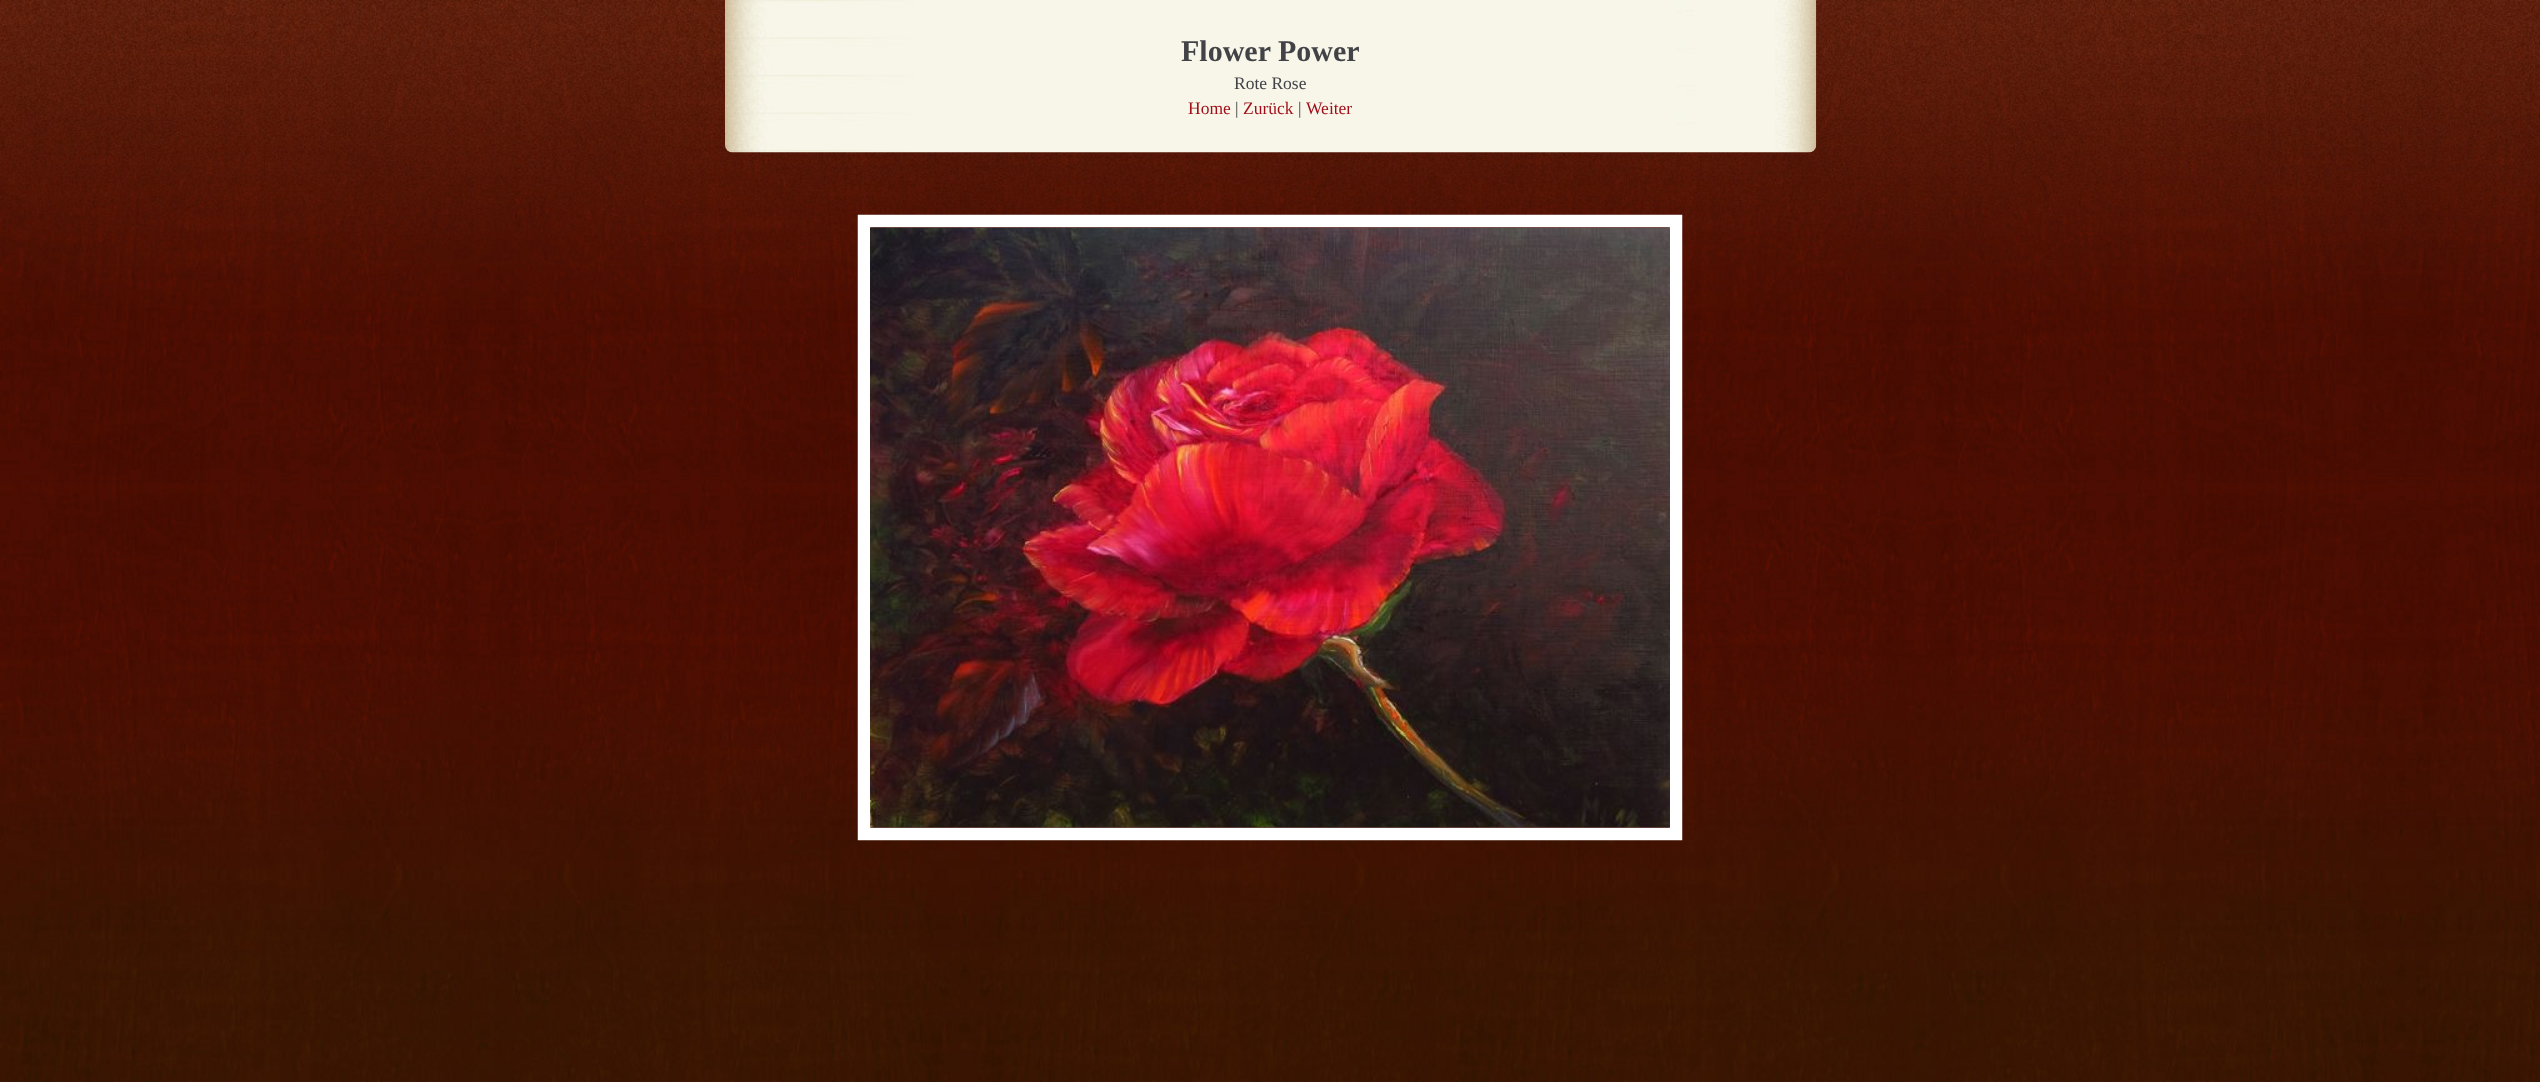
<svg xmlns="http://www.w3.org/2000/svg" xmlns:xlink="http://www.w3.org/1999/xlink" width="2540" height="1082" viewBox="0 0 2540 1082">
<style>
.cls-1{font:bold 30px Liberation Serif;fill:#424347}
.cls-2{font:17.5px Liberation Serif;fill:#424347}
.cls-3{font:17.5px Liberation Serif;fill:#9f0e19}
</style>
<rect width="100%" height="100%" fill="#ffffff"/>
<image xlink:href="image0.png" x="0" y="0" width="2540" height="1082"/>
<image xlink:href="image1.png" x="725" y="0" width="1092" height="153"/>
<path fill="none" stroke="#ffffff" stroke-width="12.5" d="M864 221H1676V834H864Z"/>
<image xlink:href="image2.png" x="870" y="227" width="800" height="601"/>
<text class="cls-1" x="1181" y="61">Flower Power</text>
<text class="cls-2" x="1234" y="89">Rote Rose</text>
<text class="cls-3" x="1188" y="114">Home</text>
<text class="cls-2" x="1235" y="114">|</text>
<text class="cls-3" x="1243" y="114">Zurück</text>
<text class="cls-2" x="1298" y="114">|</text>
<text class="cls-3" x="1306" y="114">Weiter</text>
</svg>
